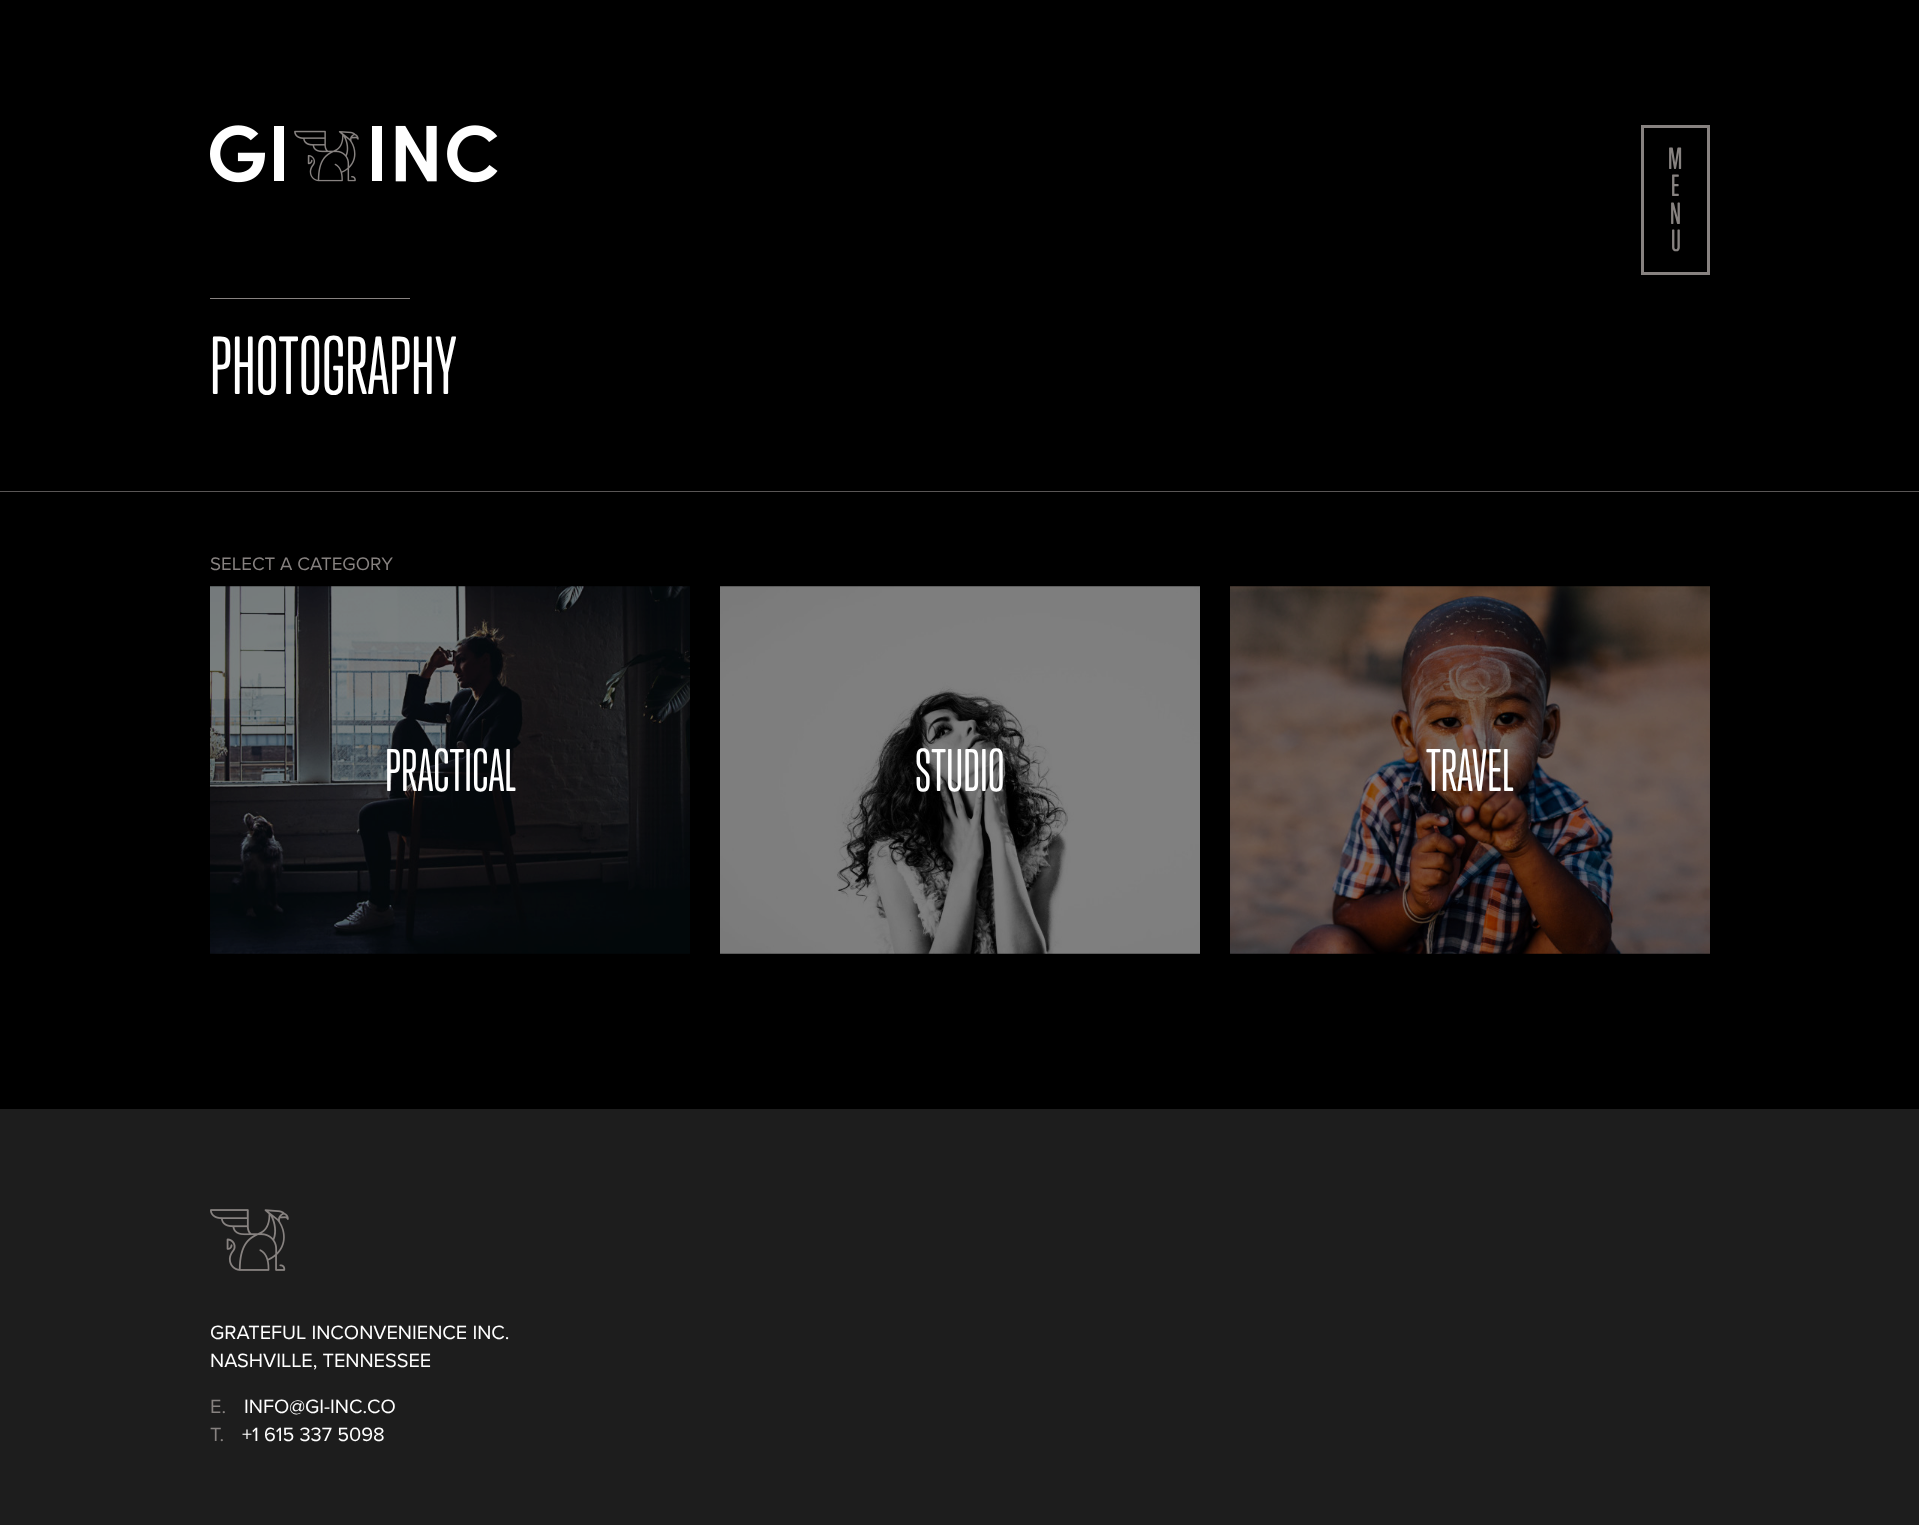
<svg xmlns="http://www.w3.org/2000/svg" xmlns:xlink="http://www.w3.org/1999/xlink" width="1919" height="1525" viewBox="0 0 1919 1525">
<style>
.cls-1{font:500 28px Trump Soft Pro;fill:#878280}
.cls-2{font:75px Trump Soft Pro;fill:#ffffff}
.cls-3{font:18.75px Proxima Nova;fill:#878280}
.cls-4{font:55px Trump Soft Pro;fill:#ffffff}
.cls-5{font:20px Proxima Nova;fill:#ffffff}
.cls-6{font:20px Proxima Nova;fill:#878280}
</style>
<rect width="100%" height="100%" fill="#1d1d1d"/>
<rect fill="#000000" x="0" y="0" width="1919" height="491"/>
<rect fill="none" stroke="#878280" stroke-width="3" x="1642.5" y="126.5" width="66" height="147"/>
<image xlink:href="image0.png" x="210" y="125" width="288" height="58"/>
<rect fill="#878280" x="210" y="298" width="200" height="1"/>
<rect fill="#000000" x="0" y="492" width="1919" height="617"/>
<rect fill="#595655" x="0" y="491" width="1919" height="1"/>
<image xlink:href="image1.png" x="210" y="586" width="480" height="368"/>
<image xlink:href="image2.png" x="720" y="586" width="480" height="368"/>
<image xlink:href="image3.png" x="1230" y="586" width="480" height="368"/>
<image xlink:href="image4.png" x="210" y="1209" width="79" height="62"/>
<text class="cls-1" x="1668" y="169">M</text>
<text class="cls-1" x="1671" y="196">E</text>
<text class="cls-1" x="1670" y="224">N</text>
<text class="cls-1" x="1671" y="251">U</text>
<text class="cls-2" x="210" y="394">PHOTOGRAPHY</text>
<text class="cls-3" x="210" y="570">SELECT A CATEGORY</text>
<text class="cls-4" x="385" y="791">PRACTICAL</text>
<text class="cls-4" x="915" y="791">STUDIO</text>
<text class="cls-4" x="1426" y="791">TRAVEL</text>
<text class="cls-5"><tspan x="210" y="1339">GRATEFUL INCONVENIENCE INC.</tspan><tspan x="210" y="1367">NASHVILLE, TENNESSEE</tspan></text>
<text class="cls-6" x="210" y="1413">E.</text>
<text class="cls-5" x="244" y="1413">INFO@GI-INC.CO</text>
<text class="cls-6" x="210" y="1441">T.</text>
<text class="cls-5" x="242" y="1441">+1 615 337 5098</text>
</svg>
